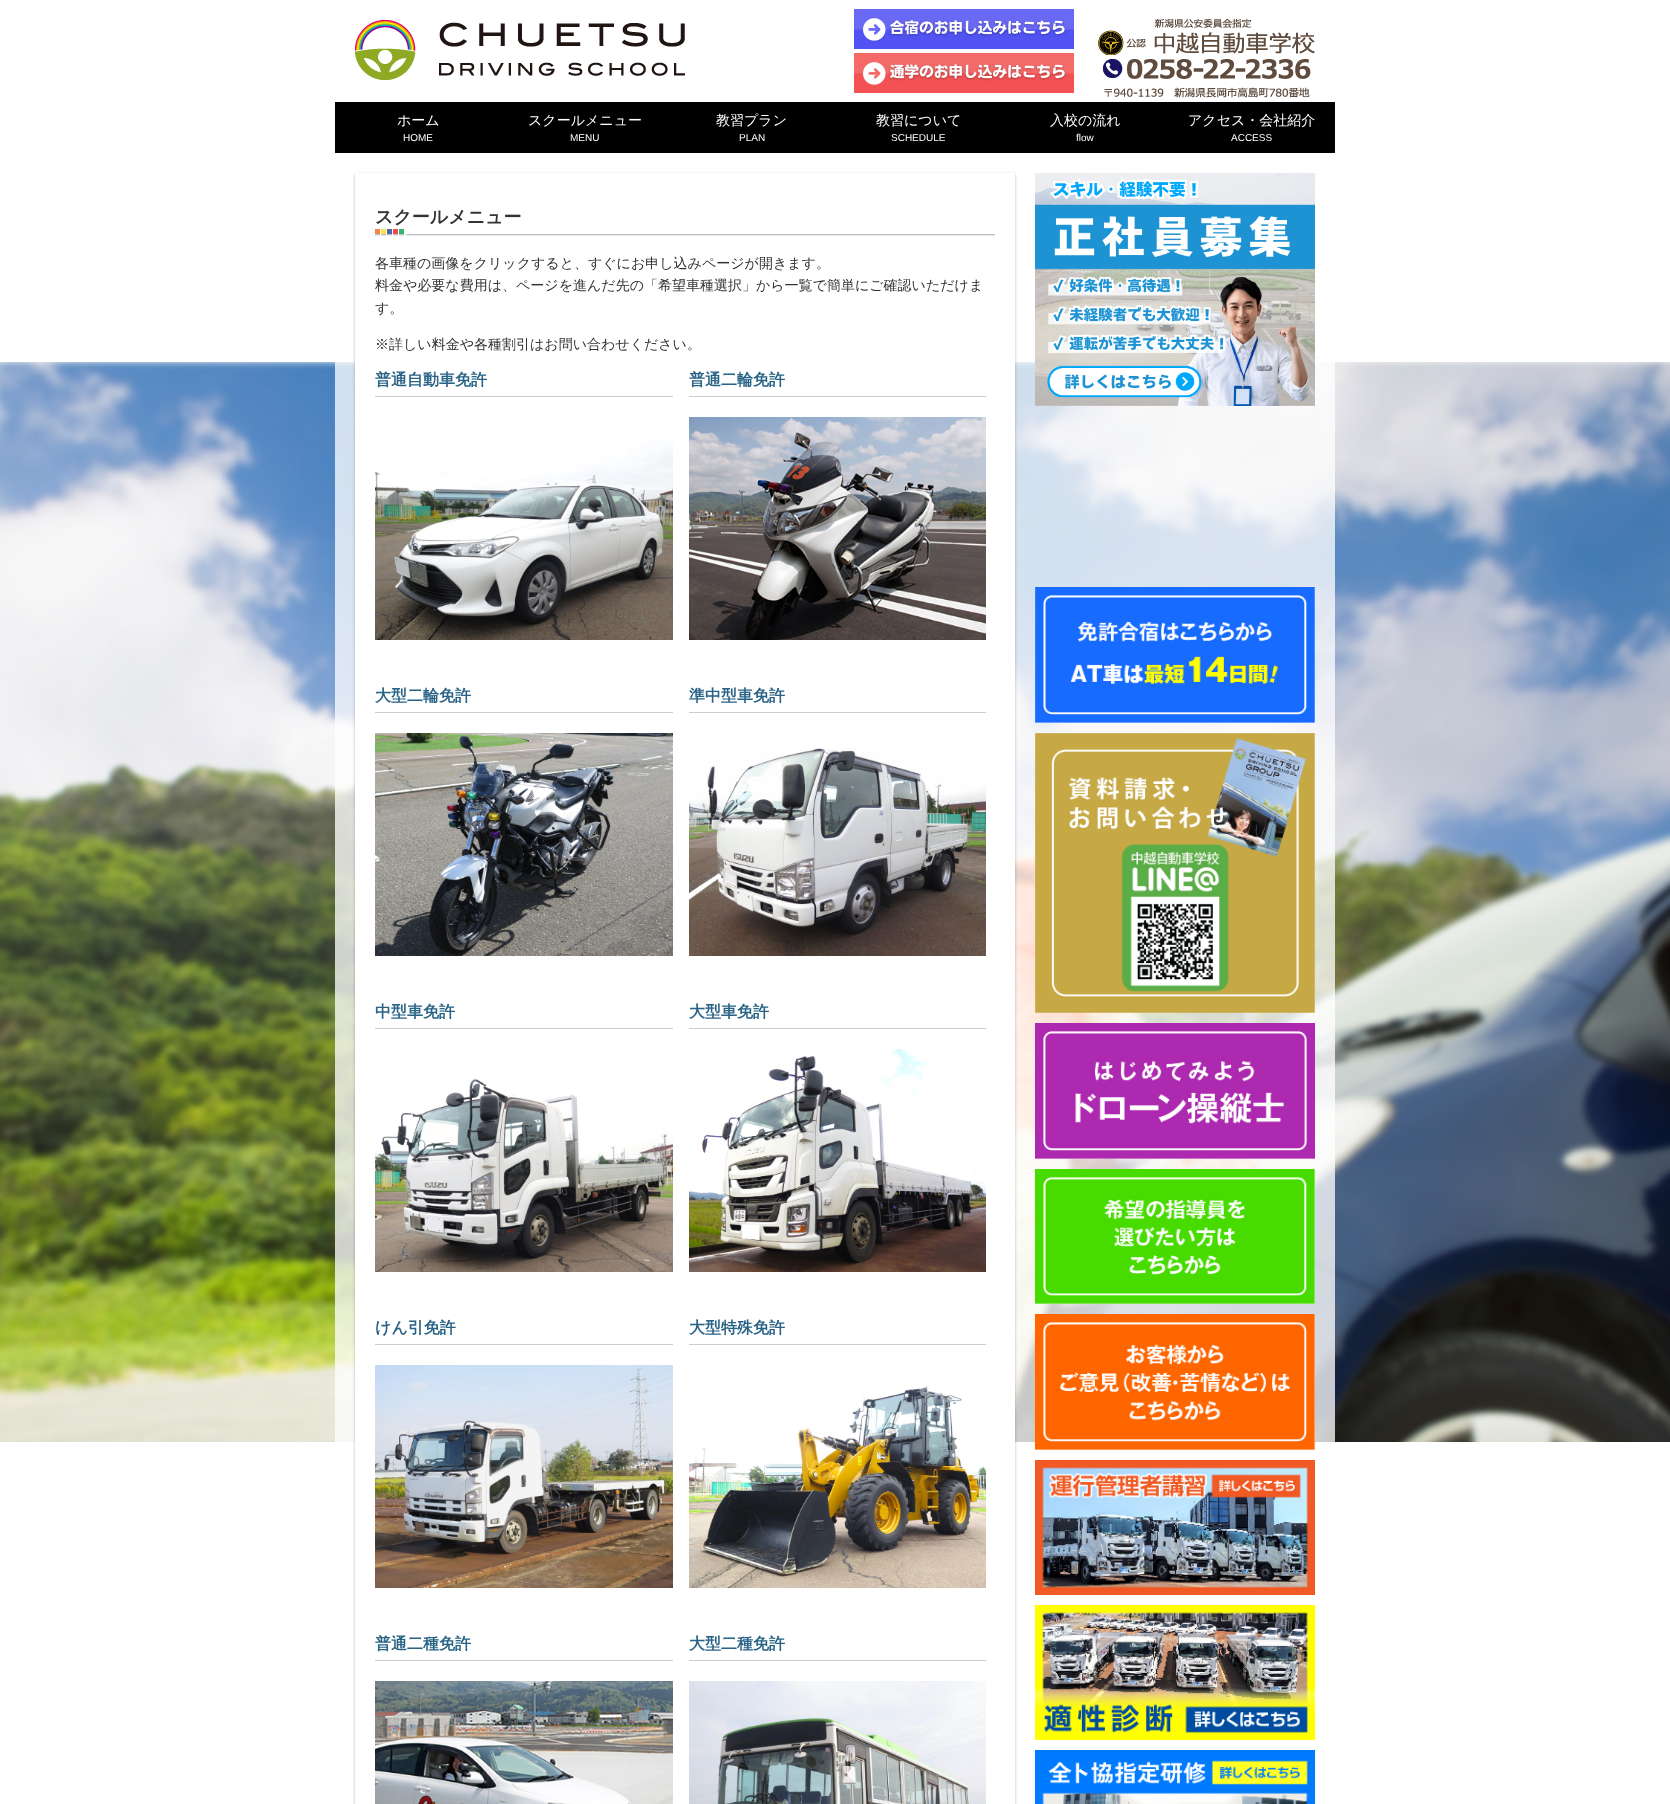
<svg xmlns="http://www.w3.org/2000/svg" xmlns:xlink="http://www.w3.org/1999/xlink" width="1670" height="1804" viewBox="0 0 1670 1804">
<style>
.cls-1{font:500 14px WenQuanYi Zen Hei;fill:#ffffff}
.cls-2{font:10px Liberation Sans;fill:#ffffff}
.cls-3{font:bold 18px WenQuanYi Zen Hei;fill:#333333}
.cls-4{font:500 14px WenQuanYi Zen Hei;fill:#333333}
.cls-5{font:bold 16px WenQuanYi Zen Hei;fill:#286386}
</style>
<rect width="100%" height="100%" fill="#ffffff"/>
<image xlink:href="image0.png" x="0" y="362" width="1670" height="1080"/>
<image xlink:href="image1.png" x="355" y="20" width="330" height="60"/>
<image xlink:href="image2.png" x="854" y="9" width="220" height="40"/>
<image xlink:href="image3.png" x="854" y="53" width="220" height="40"/>
<image xlink:href="image4.png" x="1098" y="19" width="217" height="36"/>
<image xlink:href="image5.png" x="1103" y="59" width="208" height="39"/>
<rect fill="#000000" x="335" y="102" width="1000" height="51"/>
<rect fill="#ffffff" fill-opacity="0.76" x="335" y="362" width="1000" height="1080"/>
<rect fill="#000000" fill-opacity="0.25" filter="blur(1.5px)" x="355" y="174" width="660" height="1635"/>
<rect fill="#ffffff" x="355" y="173" width="660" height="1631"/>
<image xlink:href="image6.png" x="375" y="229" width="620" height="7"/>
<rect fill="#cccccc" x="375" y="396" width="298" height="1"/>
<image xlink:href="image7.png" x="375" y="440" width="298" height="200"/>
<rect fill="#cccccc" x="689" y="396" width="297" height="1"/>
<image xlink:href="image8.png" x="689" y="417" width="297" height="223"/>
<rect fill="#cccccc" x="375" y="712" width="298" height="1"/>
<image xlink:href="image9.png" x="375" y="733" width="298" height="223"/>
<rect fill="#cccccc" x="689" y="712" width="297" height="1"/>
<image xlink:href="image10.png" x="689" y="748" width="297" height="208"/>
<rect fill="#cccccc" x="375" y="1028" width="298" height="1"/>
<image xlink:href="image11.png" x="375" y="1079" width="298" height="193"/>
<rect fill="#cccccc" x="689" y="1028" width="297" height="1"/>
<image xlink:href="image12.png" x="689" y="1049" width="297" height="223"/>
<rect fill="#cccccc" x="375" y="1344" width="298" height="1"/>
<image xlink:href="image13.png" x="375" y="1365" width="298" height="223"/>
<rect fill="#cccccc" x="689" y="1344" width="297" height="1"/>
<image xlink:href="image14.png" x="689" y="1386" width="297" height="202"/>
<rect fill="#cccccc" x="375" y="1660" width="298" height="1"/>
<image xlink:href="image15.png" x="375" y="1681" width="298" height="123"/>
<rect fill="#cccccc" x="689" y="1660" width="297" height="1"/>
<image xlink:href="image16.png" x="689" y="1681" width="297" height="123"/>
<image xlink:href="image17.png" x="1035" y="173" width="280" height="233"/>
<image xlink:href="image18.png" x="1035" y="587" width="280" height="136"/>
<image xlink:href="image19.png" x="1035" y="733" width="280" height="280"/>
<image xlink:href="image20.png" x="1035" y="1023" width="280" height="136"/>
<image xlink:href="image21.png" x="1035" y="1169" width="280" height="135"/>
<image xlink:href="image22.png" x="1035" y="1314" width="280" height="136"/>
<image xlink:href="image23.png" x="1035" y="1460" width="280" height="135"/>
<image xlink:href="image24.png" x="1035" y="1605" width="280" height="135"/>
<image xlink:href="image25.png" x="1035" y="1750" width="280" height="54"/>
<text class="cls-1" x="397" y="125">ホーム</text>
<text class="cls-2" x="403" y="141">HOME</text>
<text class="cls-1" x="528" y="125">スクールメニュー</text>
<text class="cls-2" x="570" y="141">MENU</text>
<text class="cls-1" x="716" y="125">教習プラン</text>
<text class="cls-2" x="739" y="141">PLAN</text>
<text class="cls-1" x="876" y="125">教習について</text>
<text class="cls-2" x="891" y="141">SCHEDULE</text>
<text class="cls-1" x="1050" y="125">入校の流れ</text>
<text class="cls-2" x="1076" y="141">flow</text>
<text class="cls-1" x="1188" y="125">アクセス・会社紹介</text>
<text class="cls-2" x="1231" y="141">ACCESS</text>
<text class="cls-3" x="375" y="223">スクールメニュー</text>
<text class="cls-4"><tspan x="375" y="268">各車種の画像をクリックすると、すぐにお申し込みページが開きます。</tspan><tspan x="375" y="290">料金や必要な費用は、ページを進んだ先の「希望車種選択」から一覧で簡単にご確認いただけま</tspan><tspan x="375" y="313">す。</tspan></text>
<text class="cls-4" x="375" y="349">※詳しい料金や各種割引はお問い合わせください。</text>
<text class="cls-5" x="375" y="385">普通自動車免許</text>
<text class="cls-5" x="689" y="385">普通二輪免許</text>
<text class="cls-5" x="375" y="701">大型二輪免許</text>
<text class="cls-5" x="689" y="701">準中型車免許</text>
<text class="cls-5" x="375" y="1017">中型車免許</text>
<text class="cls-5" x="689" y="1017">大型車免許</text>
<text class="cls-5" x="375" y="1333">けん引免許</text>
<text class="cls-5" x="689" y="1333">大型特殊免許</text>
<text class="cls-5" x="375" y="1649">普通二種免許</text>
<text class="cls-5" x="689" y="1649">大型二種免許</text>
</svg>
